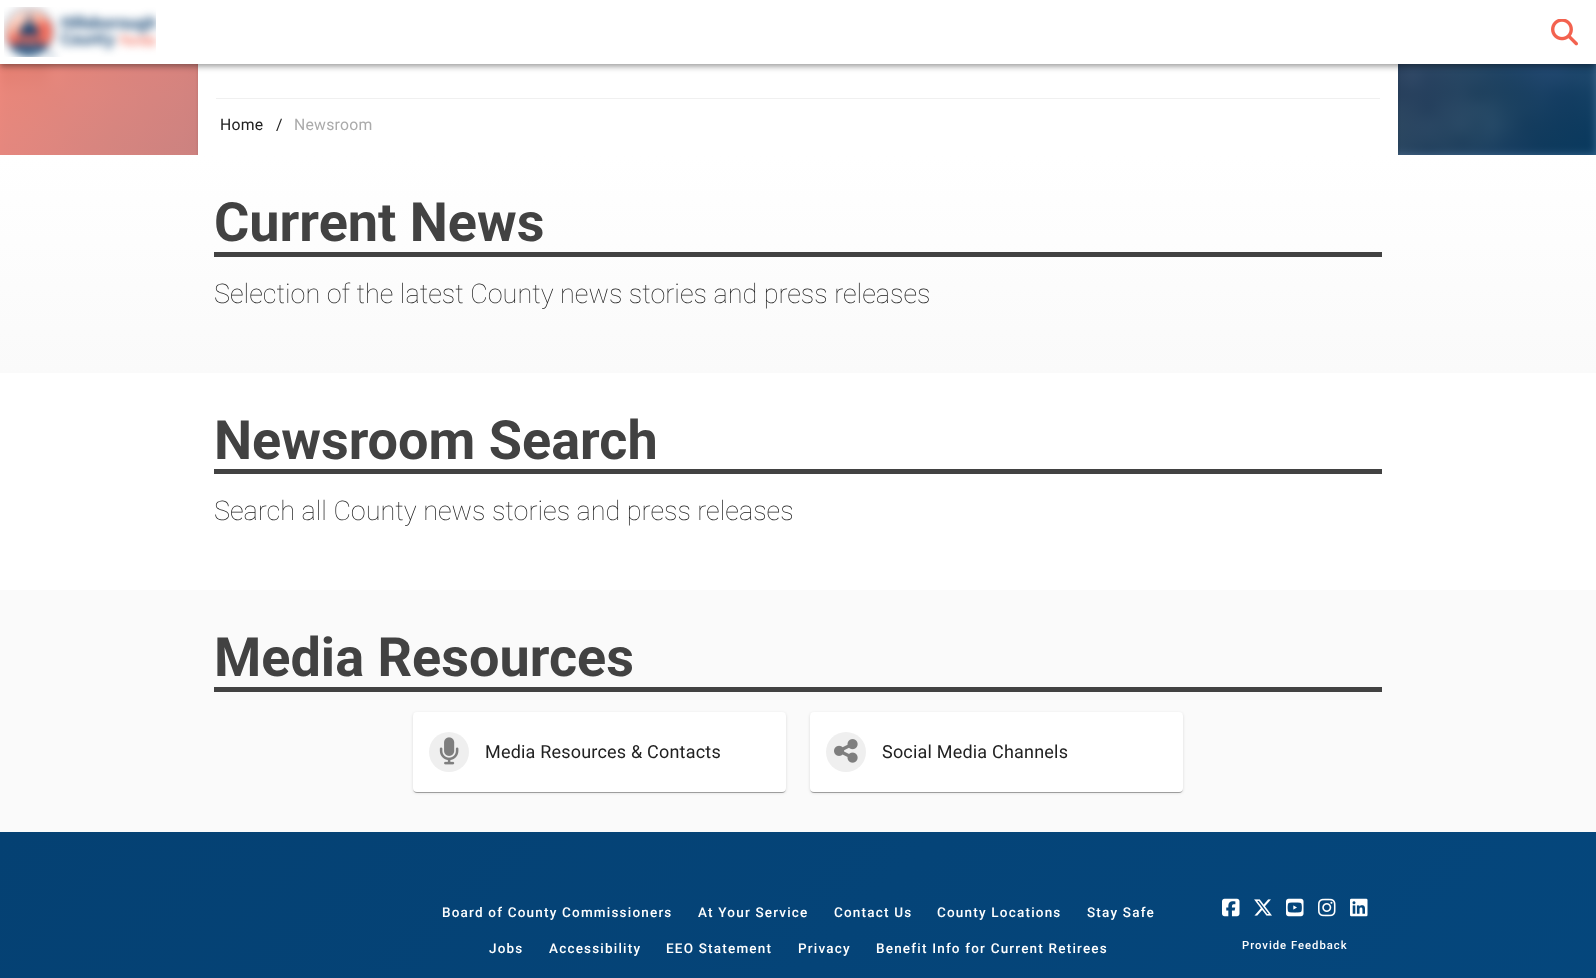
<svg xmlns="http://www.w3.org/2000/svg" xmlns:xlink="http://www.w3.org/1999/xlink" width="1596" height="978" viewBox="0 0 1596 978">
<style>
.cls-1{font:15.75px Roboto;letter-spacing:0.25px;fill:#212121}
.cls-2{font:15.75px Roboto;letter-spacing:0.25px;fill:#ababab}
.cls-3{font:bold 54px Roboto;fill:#424242}
.cls-4{font:100 27px Roboto;fill:#212121}
.cls-5{font:18px Roboto;letter-spacing:0.2px;fill:#212121}
.cls-6{font:500 13.5px Roboto;letter-spacing:1.2px;fill:#ffffff}
.cls-7{font:500 11.25px Roboto;letter-spacing:1px;fill:#ffffff}
</style>
<defs>
<linearGradient id="g1" gradientUnits="userSpaceOnUse" x1="344" y1="-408" x2="1252" y2="499"><stop offset="0" stop-color="#ff6f5b" stop-opacity="0.8"/><stop offset="1" stop-color="#054173" stop-opacity="0.8"/></linearGradient>
<linearGradient id="g2" gradientUnits="userSpaceOnUse" x1="798" y1="373" x2="798" y2="155"><stop offset="0" stop-color="#fafafa"/><stop offset="1" stop-color="#ffffff"/></linearGradient>
<linearGradient id="g3" gradientUnits="userSpaceOnUse" x1="326" y1="506" x2="1270" y2="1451"><stop offset="0" stop-color="#054173"/><stop offset="1" stop-color="#05477d"/></linearGradient>
</defs>
<rect width="100%" height="100%" fill="#ffffff"/>
<image xlink:href="image2.png" x="0" y="64" width="1596" height="91"/>
<rect fill="url(#g1)" x="0" y="64" width="1596" height="91"/>
<rect fill="#000000" fill-opacity="0.12" filter="blur(1.5px)" x="198" y="-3" width="1200" height="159"/>
<rect fill="#ffffff" x="198" y="64" width="1200" height="91"/>
<rect fill="#000000" fill-opacity="0.12" filter="blur(5px)" x="0" y="1" width="1596" height="64"/>
<rect fill="#000000" fill-opacity="0.14" filter="blur(2.5px)" x="0" y="4" width="1596" height="64"/>
<rect fill="#000000" fill-opacity="0.2" filter="blur(2px)" x="1" y="3" width="1594" height="62"/>
<rect fill="#ffffff" x="0" y="0" width="1596" height="64"/>
<image xlink:href="image0.png" x="4" y="7" width="152" height="50"/>
<image xlink:href="image1.png" x="1551" y="19" width="27" height="27"/>
<rect fill="#f0f0f0" x="216" y="98" width="1164" height="1"/>
<rect fill="url(#g2)" x="0" y="155" width="1596" height="218"/>
<rect fill="#424242" x="214" y="252" width="1168" height="5"/>
<rect fill="#424242" x="214" y="469" width="1168" height="5"/>
<rect fill="#fafafa" x="0" y="590" width="1596" height="242"/>
<rect fill="#424242" x="214" y="687" width="1168" height="5"/>
<rect fill="#000000" fill-opacity="0.12" filter="blur(1.5px)" x="413" y="713" width="373" height="80" rx="4"/>
<rect fill="#000000" fill-opacity="0.14" filter="blur(0.5px)" x="413" y="713" width="373" height="80" rx="4"/>
<rect fill="#000000" fill-opacity="0.2" filter="blur(0.5px)" x="414" y="715" width="371" height="78" rx="3"/>
<rect fill="#ffffff" x="413" y="712" width="373" height="80" rx="4"/>
<image xlink:href="image3.png" x="439" y="737" width="20" height="28"/>
<circle fill="#7f7f7f" fill-opacity="0.12" cx="449" cy="752" r="20"/>
<rect fill="#000000" fill-opacity="0.12" filter="blur(1.5px)" x="810" y="713" width="373" height="80" rx="4"/>
<rect fill="#000000" fill-opacity="0.14" filter="blur(0.5px)" x="810" y="713" width="373" height="80" rx="4"/>
<rect fill="#000000" fill-opacity="0.2" filter="blur(0.5px)" x="811" y="715" width="371" height="78" rx="3"/>
<rect fill="#ffffff" x="810" y="712" width="373" height="80" rx="4"/>
<image xlink:href="image4.png" x="834" y="739" width="24" height="24"/>
<circle fill="#7f7f7f" fill-opacity="0.12" cx="846" cy="752" r="20"/>
<rect fill="url(#g3)" x="0" y="832" width="1596" height="146"/>
<image xlink:href="image5.png" x="1222" y="898" width="18" height="19"/>
<image xlink:href="image6.png" x="1254" y="899" width="18" height="17"/>
<image xlink:href="image7.png" x="1286" y="898" width="18" height="19"/>
<image xlink:href="image8.png" x="1318" y="898" width="18" height="19"/>
<image xlink:href="image9.png" x="1350" y="898" width="18" height="19"/>
<text class="cls-1" x="220" y="130">Home</text>
<text class="cls-1" x="276" y="130">/</text>
<text class="cls-2" x="294" y="130">Newsroom</text>
<text class="cls-3" x="214" y="241">Current News</text>
<text class="cls-4" x="214" y="303">Selection of the latest County news stories and press releases</text>
<text class="cls-3" x="214" y="459">Newsroom Search</text>
<text class="cls-4" x="214" y="520">Search all County news stories and press releases</text>
<text class="cls-3" x="214" y="676">Media Resources</text>
<text class="cls-5" x="485" y="758">Media Resources &amp; Contacts</text>
<text class="cls-5" x="882" y="758">Social Media Channels</text>
<text class="cls-6" x="442" y="917">Board of County Commissioners</text>
<text class="cls-6" x="698" y="917">At Your Service</text>
<text class="cls-6" x="834" y="917">Contact Us</text>
<text class="cls-6" x="937" y="917">County Locations</text>
<text class="cls-6" x="1087" y="917">Stay Safe</text>
<text class="cls-6" x="489" y="953">Jobs</text>
<text class="cls-6" x="549" y="953">Accessibility</text>
<text class="cls-6" x="666" y="953">EEO Statement</text>
<text class="cls-6" x="798" y="953">Privacy</text>
<text class="cls-6" x="876" y="953">Benefit Info for Current Retirees</text>
<text class="cls-7" x="1242" y="949">Provide Feedback</text>
</svg>
